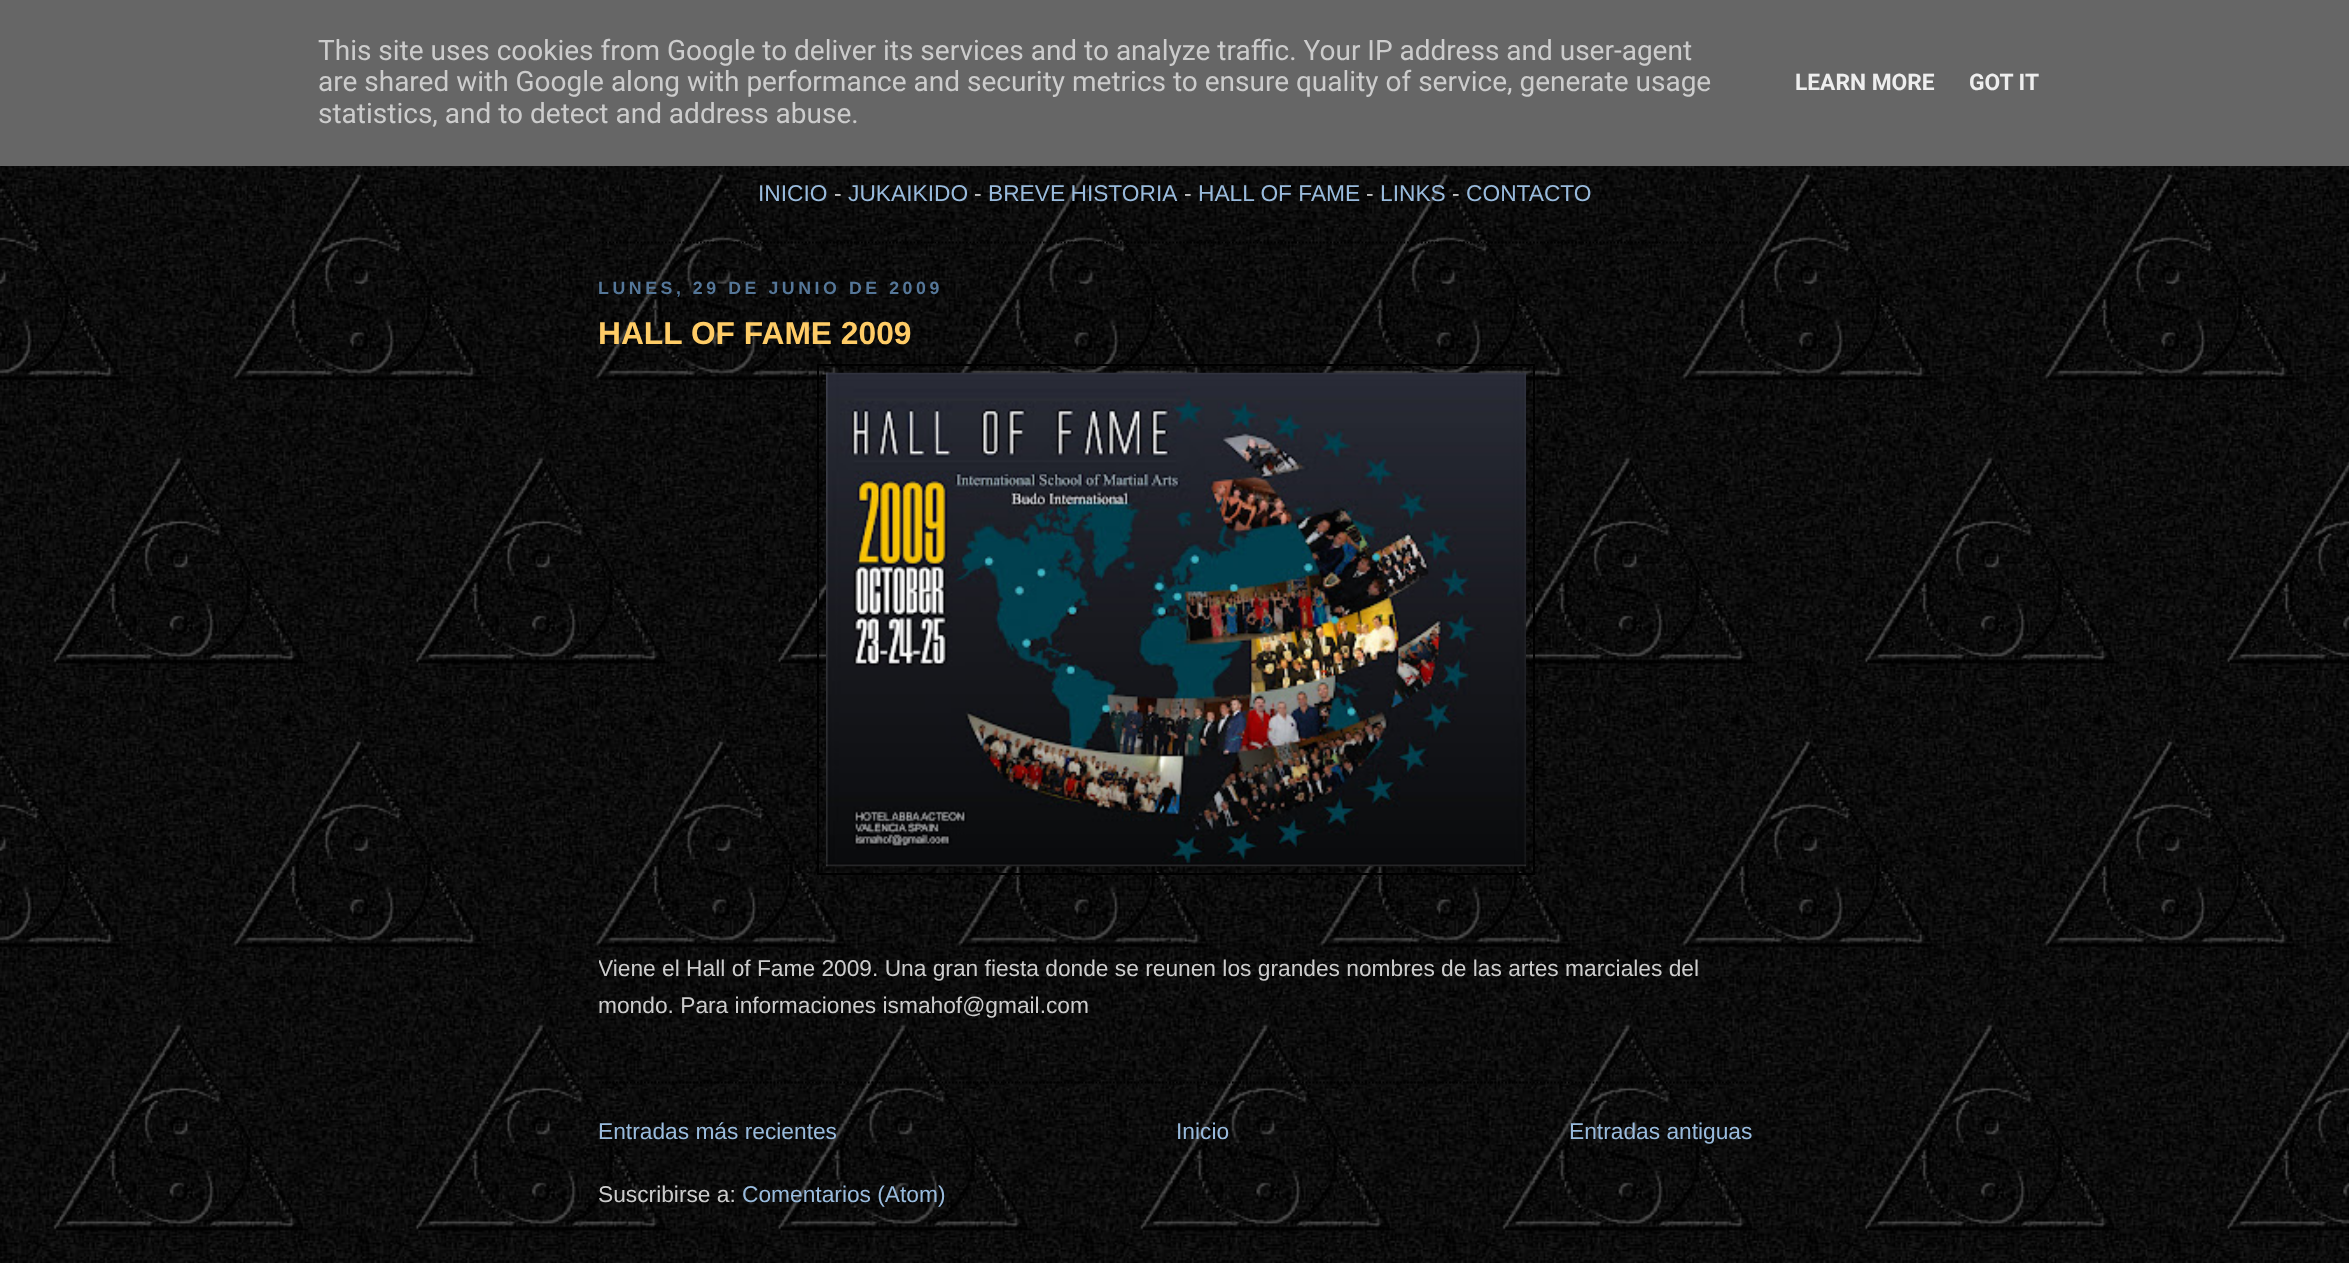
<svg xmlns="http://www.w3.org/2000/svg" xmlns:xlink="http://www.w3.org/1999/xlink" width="2349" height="1263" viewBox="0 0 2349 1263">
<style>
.cls-1{font:28px Roboto;fill:#cccccc}
.cls-2{font:bold 22.75px Roboto;fill:#eeeeee}
.cls-3{font:22.75px Liberation Sans;fill:#99bbdd}
.cls-4{font:22.75px Liberation Sans;fill:#cccccc}
.cls-5{font:bold 17.75px Liberation Sans;letter-spacing:3.55px;fill:#557799}
.cls-6{font:bold 31.75px Liberation Sans;fill:#ffcc66}
</style>
<defs>
<clipPath id="clip1"><rect x="599" y="180" width="1155" height="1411"/></clipPath>
</defs>
<rect width="100%" height="100%" fill="#ffffff"/>
<image xlink:href="image0.png" x="0" y="166" width="2349" height="1097"/>
<rect fill="#666666" x="0" y="0" width="2349" height="166"/>
<g clip-path="url(#clip1)">
<path fill="none" stroke="#000000" stroke-width="1.8" stroke-dasharray="1.75 1.75" d="M598.5 242.5H1753.5"/>
<path fill="none" stroke="#000000" stroke-width="1.8" stroke-dasharray="1.75 1.75" d="M598.5 1082.5H1753.5"/>
</g>
<rect fill="none" stroke="#000000" stroke-width="2" x="818" y="365" width="716" height="509"/>
<image xlink:href="image1.png" x="826" y="372" width="700" height="495"/>
<text class="cls-1"><tspan x="318" y="60">This site uses cookies from Google to deliver its services and to analyze traffic. Your IP address and user-agent</tspan><tspan x="318" y="91">are shared with Google along with performance and security metrics to ensure quality of service, generate usage</tspan><tspan x="318" y="123">statistics, and to detect and address abuse.</tspan></text>
<text class="cls-2" x="1795" y="90">LEARN MORE</text>
<text class="cls-2" x="1969" y="90">GOT IT</text>
<text class="cls-3" x="758" y="201">INICIO</text>
<text class="cls-4" x="834" y="201">-</text>
<text class="cls-3" x="848" y="201">JUKAIKIDO</text>
<text class="cls-4" x="974" y="201">-</text>
<text class="cls-3" x="988" y="201" word-spacing="-1">BREVE HISTORIA</text>
<text class="cls-4" x="1184" y="201">-</text>
<text class="cls-3" x="1198" y="201">HALL OF FAME</text>
<text class="cls-4" x="1366" y="201">-</text>
<text class="cls-3" x="1380" y="201">LINKS</text>
<text class="cls-4" x="1452" y="201">-</text>
<text class="cls-3" x="1466" y="201">CONTACTO</text>
<g clip-path="url(#clip1)">
<text class="cls-5" x="598" y="294">LUNES, 29 DE JUNIO DE 2009</text>
</g>
<text class="cls-6" x="598" y="344">HALL OF FAME 2009</text>
<g clip-path="url(#clip1)">
<text class="cls-4" x="598" y="976">Viene el Hall of Fame 2009. Una gran fiesta donde se reunen los grandes nombres de las artes marciales del</text>
</g>
<text class="cls-4" x="598" y="1013">mondo. Para informaciones ismahof@gmail.com</text>
<text class="cls-3" x="598" y="1139">Entradas más recientes</text>
<text class="cls-3" x="1176" y="1139">Inicio</text>
<text class="cls-3" x="1569" y="1139">Entradas antiguas</text>
<text class="cls-4" x="598" y="1202">Suscribirse a:</text>
<text class="cls-3" x="742" y="1202">Comentarios (Atom)</text>
</svg>
